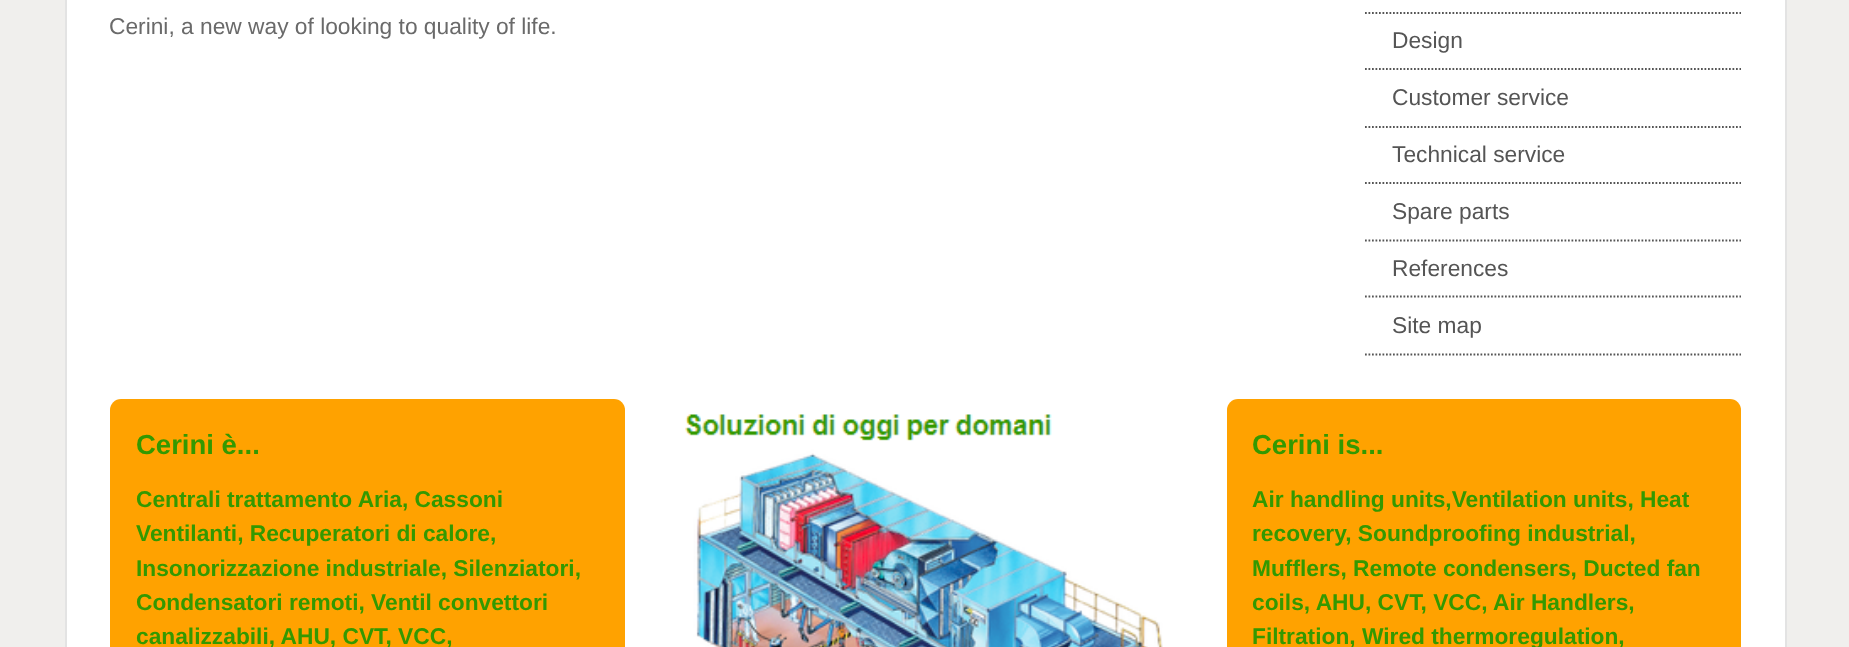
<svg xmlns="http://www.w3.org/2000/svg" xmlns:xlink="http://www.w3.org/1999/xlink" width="1849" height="647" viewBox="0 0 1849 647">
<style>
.cls-1{font:22.75px Liberation Sans;fill:#6a6a6a}
.cls-2{font:22.75px Liberation Sans;fill:#555555}
.cls-3{font:bold 27.5px Liberation Sans;fill:#339900}
.cls-4{font:bold 22.75px Liberation Sans;fill:#339900}
</style>
<rect width="100%" height="100%" fill="#f0efed"/>
<rect fill="#ffffff" stroke="#e3e3e3" stroke-width="2" x="66" y="-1" width="1720" height="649"/>
<path fill="none" stroke="#555555" stroke-width="1.8" stroke-dasharray="1.75 1.75" d="M1365 13H1741"/>
<path fill="none" stroke="#555555" stroke-width="1.8" stroke-dasharray="1.75 1.75" d="M1365 69H1741"/>
<path fill="none" stroke="#555555" stroke-width="1.8" stroke-dasharray="1.75 1.75" d="M1365 127H1741"/>
<path fill="none" stroke="#555555" stroke-width="1.8" stroke-dasharray="1.75 1.75" d="M1365 183H1741"/>
<path fill="none" stroke="#555555" stroke-width="1.8" stroke-dasharray="1.75 1.75" d="M1365 240.5H1741"/>
<path fill="none" stroke="#555555" stroke-width="1.8" stroke-dasharray="1.75 1.75" d="M1365 296.5H1741"/>
<path fill="none" stroke="#555555" stroke-width="1.8" stroke-dasharray="1.75 1.75" d="M1365 354.5H1741"/>
<rect fill="#ffa200" x="110" y="399" width="515" height="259" rx="11"/>
<image xlink:href="image0.png" x="685" y="414" width="478" height="233"/>
<rect fill="#ffa200" x="1227" y="399" width="514" height="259" rx="11"/>
<text class="cls-1" x="109" y="34">Cerini, a new way of looking to quality of life.</text>
<text class="cls-2" x="1392" y="48">Design</text>
<text class="cls-2" x="1392" y="105">Customer service</text>
<text class="cls-2" x="1392" y="162">Technical service</text>
<text class="cls-2" x="1392" y="219">Spare parts</text>
<text class="cls-2" x="1392" y="276">References</text>
<text class="cls-2" x="1392" y="333">Site map</text>
<text class="cls-3" x="136" y="454">Cerini è...</text>
<text class="cls-4"><tspan x="136" y="507">Centrali trattamento Aria, Cassoni</tspan><tspan x="136" y="541">Ventilanti, Recuperatori di calore,</tspan><tspan x="136" y="576">Insonorizzazione industriale, Silenziatori,</tspan><tspan x="136" y="610">Condensatori remoti, Ventil convettori</tspan><tspan x="136" y="644">canalizzabili, AHU, CVT, VCC,</tspan></text>
<text class="cls-3" x="1252" y="454">Cerini is...</text>
<text class="cls-4"><tspan x="1252" y="507">Air handling units,Ventilation units, Heat</tspan><tspan x="1252" y="541">recovery, Soundproofing industrial,</tspan><tspan x="1252" y="576">Mufflers, Remote condensers, Ducted fan</tspan><tspan x="1252" y="610">coils, AHU, CVT, VCC, Air Handlers,</tspan><tspan x="1252" y="644">Filtration, Wired thermoregulation,</tspan></text>
</svg>
